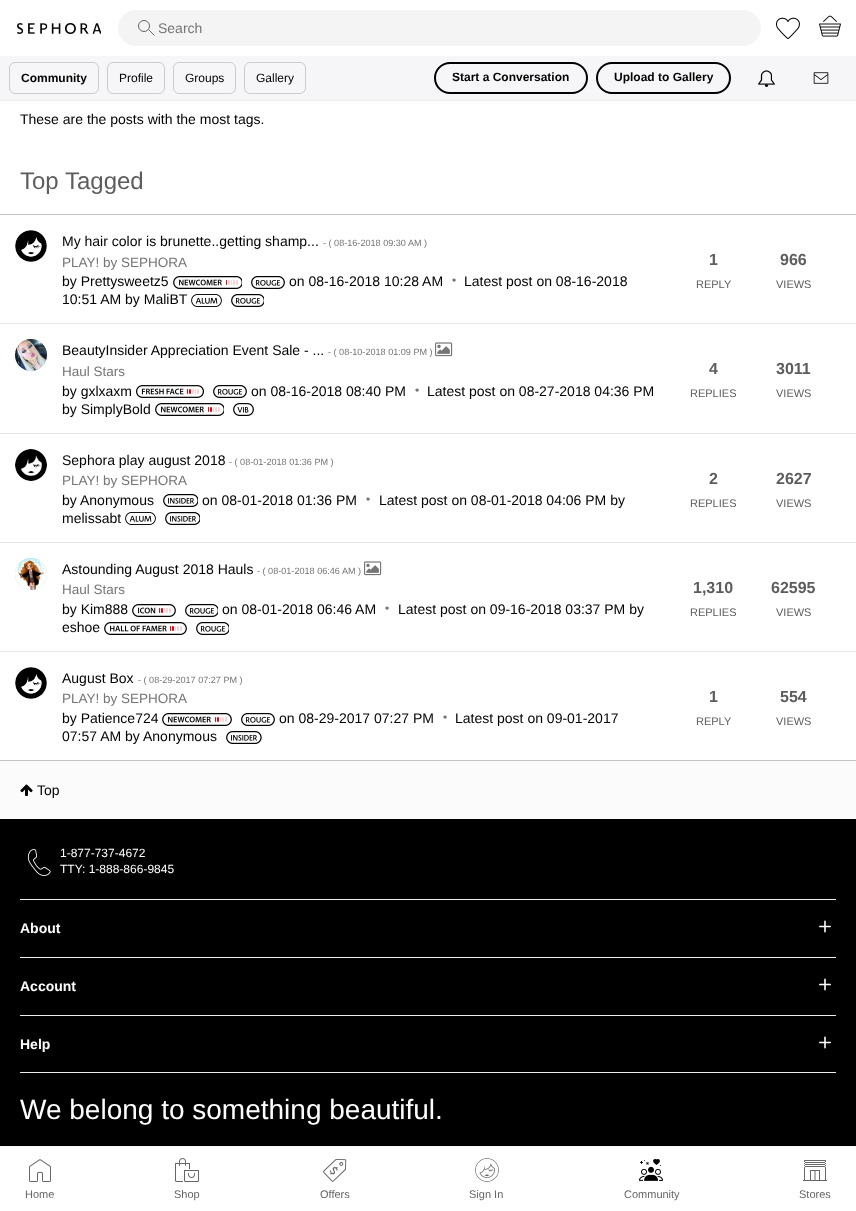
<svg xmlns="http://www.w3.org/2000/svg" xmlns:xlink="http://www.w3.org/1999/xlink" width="856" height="1211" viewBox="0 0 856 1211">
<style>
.cls-1{font:14px Liberation Sans;fill:#757575}
.cls-2{font:bold 12px Liberation Sans;fill:#000000}
.cls-3{font:12px Liberation Sans;fill:#000000}
.cls-4{font:11px Liberation Sans;fill:#666666}
.cls-5{font:14px Liberation Sans;fill:#000000}
.cls-6{font:24px Liberation Sans;fill:#5d5d5d}
.cls-7{font:9.1px Liberation Sans;fill:#757575}
.cls-8{font:13.5px Liberation Sans;fill:#757575}
.cls-9{font:12px Liberation Sans;fill:#757575}
.cls-10{font:bold 16px Liberation Sans;fill:#5d5d5d}
.cls-11{font:11px Liberation Sans;fill:#5d5d5d}
.cls-12{font:12px Liberation Sans;fill:#ffffff}
.cls-13{font:bold 14px Liberation Sans;fill:#ffffff}
.cls-14{font:28px Liberation Sans;fill:#ffffff}
</style>
<defs>
<clipPath id="clip1"><path d="M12 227H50V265H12ZM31 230C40 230 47 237 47 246C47 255 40 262 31 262C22 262 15 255 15 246C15 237 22 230 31 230Z" clip-rule="evenodd"/></clipPath>
<clipPath id="clip2"><path d="M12 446H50V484H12ZM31 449C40 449 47 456 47 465C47 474 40 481 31 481C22 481 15 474 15 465C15 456 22 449 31 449Z" clip-rule="evenodd"/></clipPath>
<clipPath id="clip3"><path d="M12 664H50V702H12ZM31 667C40 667 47 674 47 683C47 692 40 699 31 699C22 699 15 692 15 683C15 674 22 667 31 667Z" clip-rule="evenodd"/></clipPath>
</defs>
<rect width="100%" height="100%" fill="#ffffff"/>
<image xlink:href="image0.png" x="17" y="23" width="84" height="11"/>
<rect fill="#f4f4f4" x="118" y="10" width="643" height="36" rx="18"/>
<circle fill="none" stroke="#666666" cx="144" cy="26" r="5.5"/>
<path fill="none" stroke="#666666" d="M148.5 29.5L154.5 35.5"/>
<image xlink:href="image1.png" x="776" y="17" width="24" height="22"/>
<image xlink:href="image2.png" x="819" y="15" width="22" height="22"/>
<rect fill="#eeeeee" x="0" y="100" width="856" height="1"/>
<rect fill="#f6f6f8" x="0" y="56" width="856" height="44"/>
<rect fill="none" stroke="#cccccc" x="9.5" y="62.5" width="89" height="31" rx="5.5"/>
<rect fill="none" stroke="#cccccc" x="107.5" y="62.5" width="57" height="31" rx="5.5"/>
<rect fill="none" stroke="#cccccc" x="173.5" y="62.5" width="62" height="31" rx="5.5"/>
<rect fill="none" stroke="#cccccc" x="244.5" y="62.5" width="61" height="31" rx="5.5"/>
<rect fill="none" stroke="#000000" stroke-width="2" x="435" y="63" width="152" height="30" rx="15"/>
<rect fill="none" stroke="#000000" stroke-width="2" x="597" y="63" width="133" height="30" rx="15"/>
<image xlink:href="image3.png" x="758" y="70" width="17" height="17"/>
<image xlink:href="image4.png" x="813" y="72" width="16" height="12"/>
<rect fill="#f4f4f4" x="0" y="1146" width="856" height="1"/>
<image xlink:href="image5.png" x="29" y="1159" width="22" height="23"/>
<image xlink:href="image6.png" x="175" y="1158" width="24" height="24"/>
<image xlink:href="image7.png" x="323" y="1159" width="24" height="23"/>
<image xlink:href="image8.png" x="475" y="1158" width="24" height="24"/>
<image xlink:href="image9.png" x="639" y="1159" width="24" height="22"/>
<image xlink:href="image10.png" x="803" y="1160" width="24" height="21"/>
<rect fill="#c4c4c4" x="0" y="214" width="856" height="1"/>
<rect fill="#c4c4c4" x="0" y="760" width="856" height="1"/>
<g clip-path="url(#clip1)">
<rect fill="#c4c4c4" filter="blur(0.5px)" x="15" y="230" width="32" height="32" rx="16"/>
</g>
<image xlink:href="image11.png" x="15" y="230" width="32" height="32"/>
<image xlink:href="image12.png" x="173" y="276" width="69" height="13"/>
<image xlink:href="image13.png" x="251" y="276" width="34" height="13"/>
<image xlink:href="image14.png" x="191" y="294" width="31" height="13"/>
<image xlink:href="image15.png" x="231" y="294" width="33" height="13"/>
<rect fill="#e8e8e8" x="0" y="323" width="856" height="1"/>
<rect fill="#c4c4c4" filter="blur(0.5px)" x="15" y="339" width="32" height="32" rx="16"/>
<image xlink:href="image16.png" x="15" y="339" width="32" height="32"/>
<image xlink:href="image17.png" x="435" y="342" width="18" height="15"/>
<image xlink:href="image18.png" x="136" y="385" width="68" height="13"/>
<image xlink:href="image13.png" x="213" y="385" width="34" height="13"/>
<image xlink:href="image19.png" x="155" y="403" width="69" height="13"/>
<image xlink:href="image20.png" x="233" y="403" width="21" height="13"/>
<rect fill="#e8e8e8" x="0" y="433" width="856" height="1"/>
<g clip-path="url(#clip2)">
<rect fill="#c4c4c4" filter="blur(0.5px)" x="15" y="449" width="32" height="32" rx="16"/>
</g>
<image xlink:href="image21.png" x="15" y="449" width="32" height="32"/>
<image xlink:href="image22.png" x="163" y="494" width="35" height="13"/>
<image xlink:href="image14.png" x="125" y="512" width="31" height="13"/>
<image xlink:href="image22.png" x="165" y="512" width="35" height="13"/>
<rect fill="#e8e8e8" x="0" y="542" width="856" height="1"/>
<rect fill="#c4c4c4" filter="blur(0.5px)" x="15" y="558" width="32" height="32" rx="16"/>
<image xlink:href="image23.png" x="15" y="558" width="32" height="32"/>
<image xlink:href="image17.png" x="364" y="561" width="18" height="15"/>
<image xlink:href="image24.png" x="132" y="604" width="44" height="13"/>
<image xlink:href="image15.png" x="185" y="604" width="33" height="13"/>
<image xlink:href="image25.png" x="104" y="622" width="83" height="13"/>
<image xlink:href="image15.png" x="196" y="622" width="33" height="13"/>
<rect fill="#e8e8e8" x="0" y="651" width="856" height="1"/>
<g clip-path="url(#clip3)">
<rect fill="#c4c4c4" filter="blur(0.5px)" x="15" y="667" width="32" height="32" rx="16"/>
</g>
<image xlink:href="image26.png" x="15" y="667" width="32" height="32"/>
<image xlink:href="image27.png" x="162" y="713" width="70" height="13"/>
<image xlink:href="image13.png" x="241" y="713" width="34" height="13"/>
<image xlink:href="image28.png" x="226" y="731" width="36" height="13"/>
<rect fill="#fbfbfb" x="0" y="761" width="856" height="58"/>
<image xlink:href="image29.png" x="20" y="784" width="13" height="12"/>
<rect fill="#000000" x="0" y="819" width="856" height="327"/>
<image xlink:href="image30.png" x="27" y="849" width="24" height="27"/>
<rect fill="#eeeeee" x="20" y="899" width="816" height="1"/>
<rect fill="#eeeeee" x="20" y="957" width="816" height="1"/>
<image xlink:href="image31.png" x="819" y="920" width="12" height="13"/>
<rect fill="#eeeeee" x="20" y="1015" width="816" height="1"/>
<image xlink:href="image31.png" x="819" y="978" width="12" height="13"/>
<rect fill="#eeeeee" x="20" y="1072" width="816" height="1"/>
<image xlink:href="image31.png" x="819" y="1036" width="12" height="13"/>
<text class="cls-1" x="158" y="33">Search</text>
<text class="cls-2" x="21" y="82">Community</text>
<text class="cls-3" x="119" y="82">Profile</text>
<text class="cls-3" x="185" y="82">Groups</text>
<text class="cls-3" x="256" y="82">Gallery</text>
<text class="cls-2" x="452" y="81">Start a Conversation</text>
<text class="cls-2" x="614" y="81">Upload to Gallery</text>
<text class="cls-4" x="25" y="1198">Home</text>
<text class="cls-4" x="174" y="1198">Shop</text>
<text class="cls-4" x="320" y="1198">Offers</text>
<text class="cls-4" x="469" y="1198">Sign In</text>
<text class="cls-4" x="624" y="1198">Community</text>
<text class="cls-4" x="799" y="1198">Stores</text>
<text class="cls-5" x="20" y="124">These are the posts with the most tags.</text>
<text class="cls-6" x="20" y="189">Top Tagged</text>
<text class="cls-5" x="62" y="246">My hair color is brunette..getting shamp...</text>
<text class="cls-7" x="323" y="246">- ( 08-16-2018 09:30 AM )</text>
<text class="cls-8" x="62" y="267">PLAY! by SEPHORA</text>
<text class="cls-5" x="62" y="286">by Prettysweetz5</text>
<text class="cls-5" x="289" y="286">on 08-16-2018 10:28 AM</text>
<text class="cls-9" x="452" y="284">•</text>
<text class="cls-5" x="464" y="286">Latest post on 08-16-2018</text>
<text class="cls-5" x="62" y="304">10:51 AM by MaliBT</text>
<text class="cls-10" x="709" y="265">1</text>
<text class="cls-11" x="696" y="288">REPLY</text>
<text class="cls-10" x="780" y="265">966</text>
<text class="cls-11" x="776" y="288">VIEWS</text>
<text class="cls-5" x="62" y="355">BeautyInsider Appreciation Event Sale - ...</text>
<text class="cls-7" x="328" y="355">- ( 08-10-2018 01:09 PM )</text>
<text class="cls-8" x="62" y="376">Haul Stars</text>
<text class="cls-5" x="62" y="396">by gxlxaxm</text>
<text class="cls-5" x="251" y="396">on 08-16-2018 08:40 PM</text>
<text class="cls-9" x="415" y="394">•</text>
<text class="cls-5" x="427" y="396">Latest post on 08-27-2018 04:36 PM</text>
<text class="cls-5" x="62" y="414">by SimplyBold</text>
<text class="cls-10" x="709" y="374">4</text>
<text class="cls-11" x="690" y="397">REPLIES</text>
<text class="cls-10" x="776" y="374">3011</text>
<text class="cls-11" x="776" y="397">VIEWS</text>
<text class="cls-5" x="62" y="465">Sephora play august 2018</text>
<text class="cls-7" x="229" y="465">- ( 08-01-2018 01:36 PM )</text>
<text class="cls-8" x="62" y="485">PLAY! by SEPHORA</text>
<text class="cls-5" x="62" y="505">by</text>
<text class="cls-5" x="80" y="505">Anonymous</text>
<text class="cls-5" x="202" y="505">on 08-01-2018 01:36 PM</text>
<text class="cls-9" x="366" y="503">•</text>
<text class="cls-5" x="379" y="505">Latest post on 08-01-2018 04:06 PM by</text>
<text class="cls-5" x="62" y="523">melissabt</text>
<text class="cls-10" x="709" y="484">2</text>
<text class="cls-11" x="690" y="507">REPLIES</text>
<text class="cls-10" x="776" y="484">2627</text>
<text class="cls-11" x="776" y="507">VIEWS</text>
<text class="cls-5" x="62" y="574">Astounding August 2018 Hauls</text>
<text class="cls-7" x="257" y="574">- ( 08-01-2018 06:46 AM )</text>
<text class="cls-8" x="62" y="594">Haul Stars</text>
<text class="cls-5" x="62" y="614">by Kim888</text>
<text class="cls-5" x="222" y="614">on 08-01-2018 06:46 AM</text>
<text class="cls-9" x="385" y="612">•</text>
<text class="cls-5" x="398" y="614">Latest post on 09-16-2018 03:37 PM by</text>
<text class="cls-5" x="62" y="632">eshoe</text>
<text class="cls-10" x="693" y="593">1,310</text>
<text class="cls-11" x="690" y="616">REPLIES</text>
<text class="cls-10" x="771" y="593">62595</text>
<text class="cls-11" x="776" y="616">VIEWS</text>
<text class="cls-5" x="62" y="683">August Box</text>
<text class="cls-7" x="138" y="683">- ( 08-29-2017 07:27 PM )</text>
<text class="cls-8" x="62" y="703">PLAY! by SEPHORA</text>
<text class="cls-5" x="62" y="723">by Patience724</text>
<text class="cls-5" x="279" y="723">on 08-29-2017 07:27 PM</text>
<text class="cls-9" x="443" y="721">•</text>
<text class="cls-5" x="455" y="723">Latest post on 09-01-2017</text>
<text class="cls-5" x="62" y="741">07:57 AM by</text>
<text class="cls-5" x="143" y="741">Anonymous</text>
<text class="cls-10" x="709" y="702">1</text>
<text class="cls-11" x="696" y="725">REPLY</text>
<text class="cls-10" x="780" y="702">554</text>
<text class="cls-11" x="776" y="725">VIEWS</text>
<text class="cls-5" x="37" y="795">Top</text>
<text class="cls-12"><tspan x="60" y="857">1-877-737-4672</tspan><tspan x="60" y="873">TTY: 1-888-866-9845</tspan></text>
<text class="cls-13" x="20" y="933">About</text>
<text class="cls-13" x="20" y="991">Account</text>
<text class="cls-13" x="20" y="1049">Help</text>
<text class="cls-14" x="20" y="1119">We belong to something beautiful.</text>
</svg>
